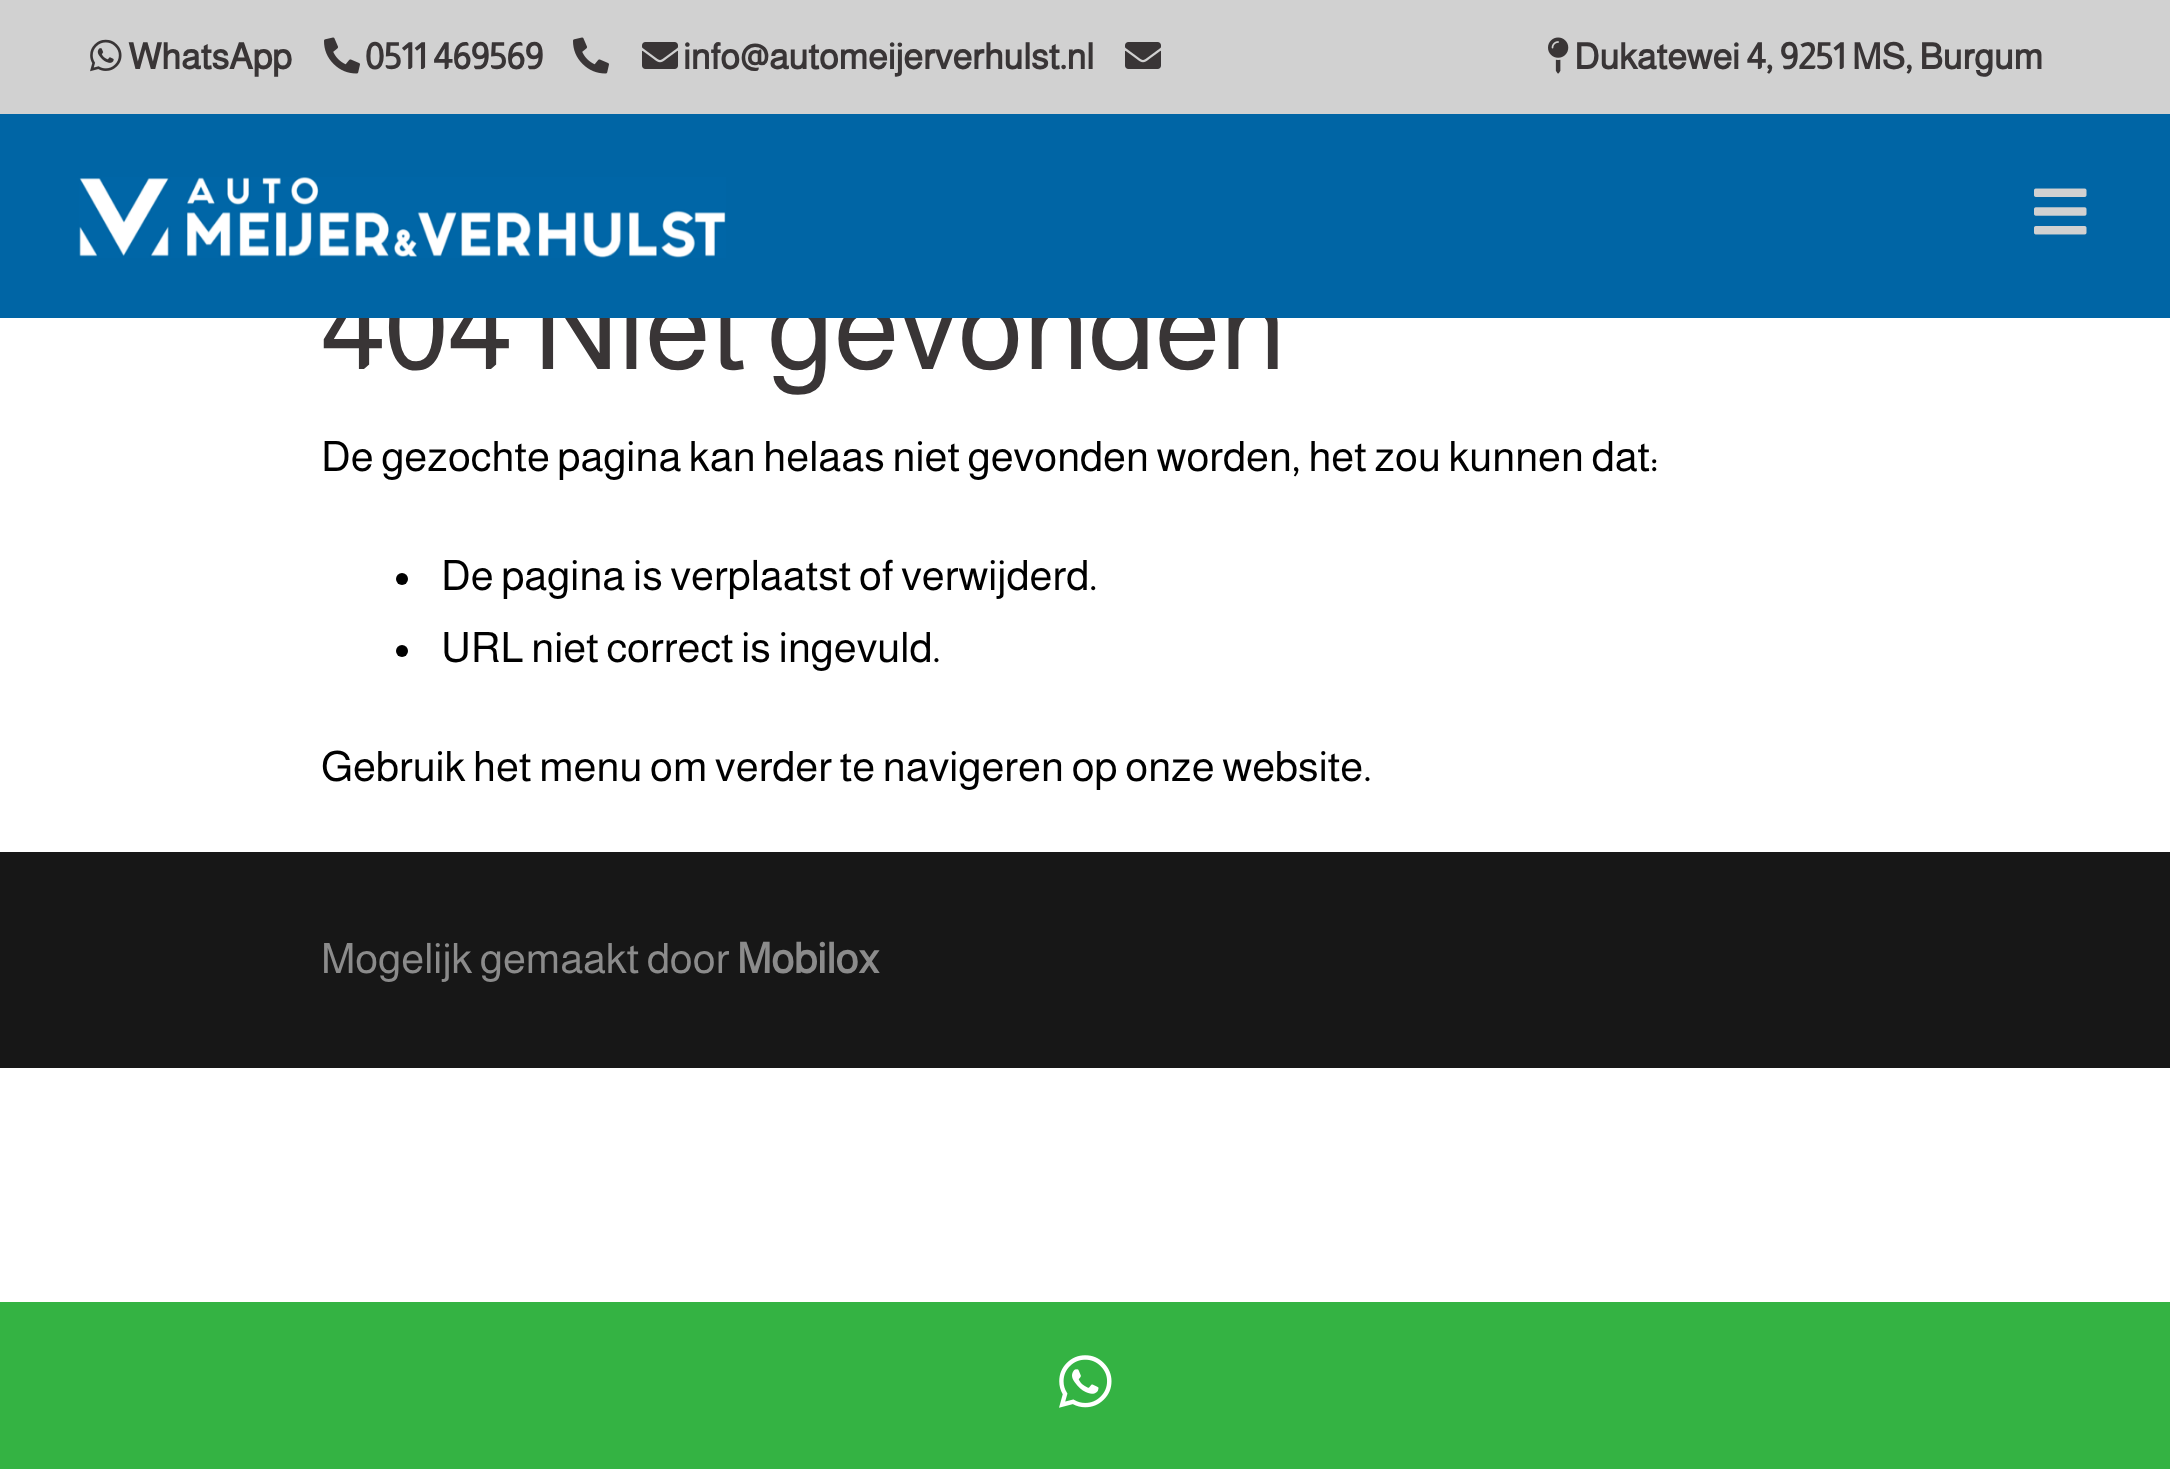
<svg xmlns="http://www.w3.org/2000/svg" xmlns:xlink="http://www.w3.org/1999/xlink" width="2170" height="1469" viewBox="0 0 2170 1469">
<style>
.cls-1{font:bold 36px Almarai;fill:#393536}
.cls-2{font:120px Almarai;fill:#393536}
.cls-3{font:42px Almarai;fill:#000000}
.cls-4{font:42px Almarai;fill:#8b8b8b}
.cls-5{font:bold 42px Almarai;fill:#8b8b8b}
</style>
<rect width="100%" height="100%" fill="#ffffff"/>
<rect fill="#d1d1d1" x="0" y="0" width="2170" height="114"/>
<image xlink:href="image0.png" x="90" y="39" width="32" height="33"/>
<image xlink:href="image1.png" x="324" y="37" width="36" height="37"/>
<image xlink:href="image1.png" x="573" y="37" width="36" height="37"/>
<image xlink:href="image2.png" x="642" y="42" width="36" height="27"/>
<image xlink:href="image2.png" x="1125" y="42" width="36" height="27"/>
<image xlink:href="image3.png" x="1548" y="37" width="21" height="37"/>
<circle fill="#000000" cx="402" cy="579" r="6"/>
<circle fill="#000000" cx="402" cy="651" r="6"/>
<rect fill="#171717" x="0" y="852" width="2170" height="216"/>
<rect fill="#34b343" x="0" y="1302" width="2170" height="167"/>
<image xlink:href="image6.png" x="1059" y="1355" width="53" height="53"/>
<text class="cls-1" x="128" y="69">WhatsApp</text>
<text class="cls-1" x="365" y="69">0511 469569</text>
<text class="cls-1" x="683" y="69">info@automeijerverhulst.nl</text>
<text class="cls-1" x="1574" y="69">Dukatewei 4, 9251 MS, Burgum</text>
<text class="cls-2" x="321" y="369">404 Niet gevonden</text>
<rect fill="#0065a5" x="0" y="114" width="2170" height="204"/>
<image xlink:href="image5.png" x="2034" y="188" width="53" height="47"/>
<image xlink:href="image4.png" x="79" y="177" width="647" height="81"/>
<text class="cls-3" x="321" y="471">De gezochte pagina kan helaas niet gevonden worden, het zou kunnen dat:</text>
<text class="cls-3"><tspan x="441" y="590">De pagina is verplaatst of verwijderd.</tspan><tspan x="441" y="662">URL niet correct is ingevuld.</tspan></text>
<text class="cls-3" x="321" y="781">Gebruik het menu om verder te navigeren op onze website.</text>
<text class="cls-4" x="321" y="973">Mogelijk gemaakt door</text>
<text class="cls-5" x="737" y="973">Mobilox</text>
</svg>
